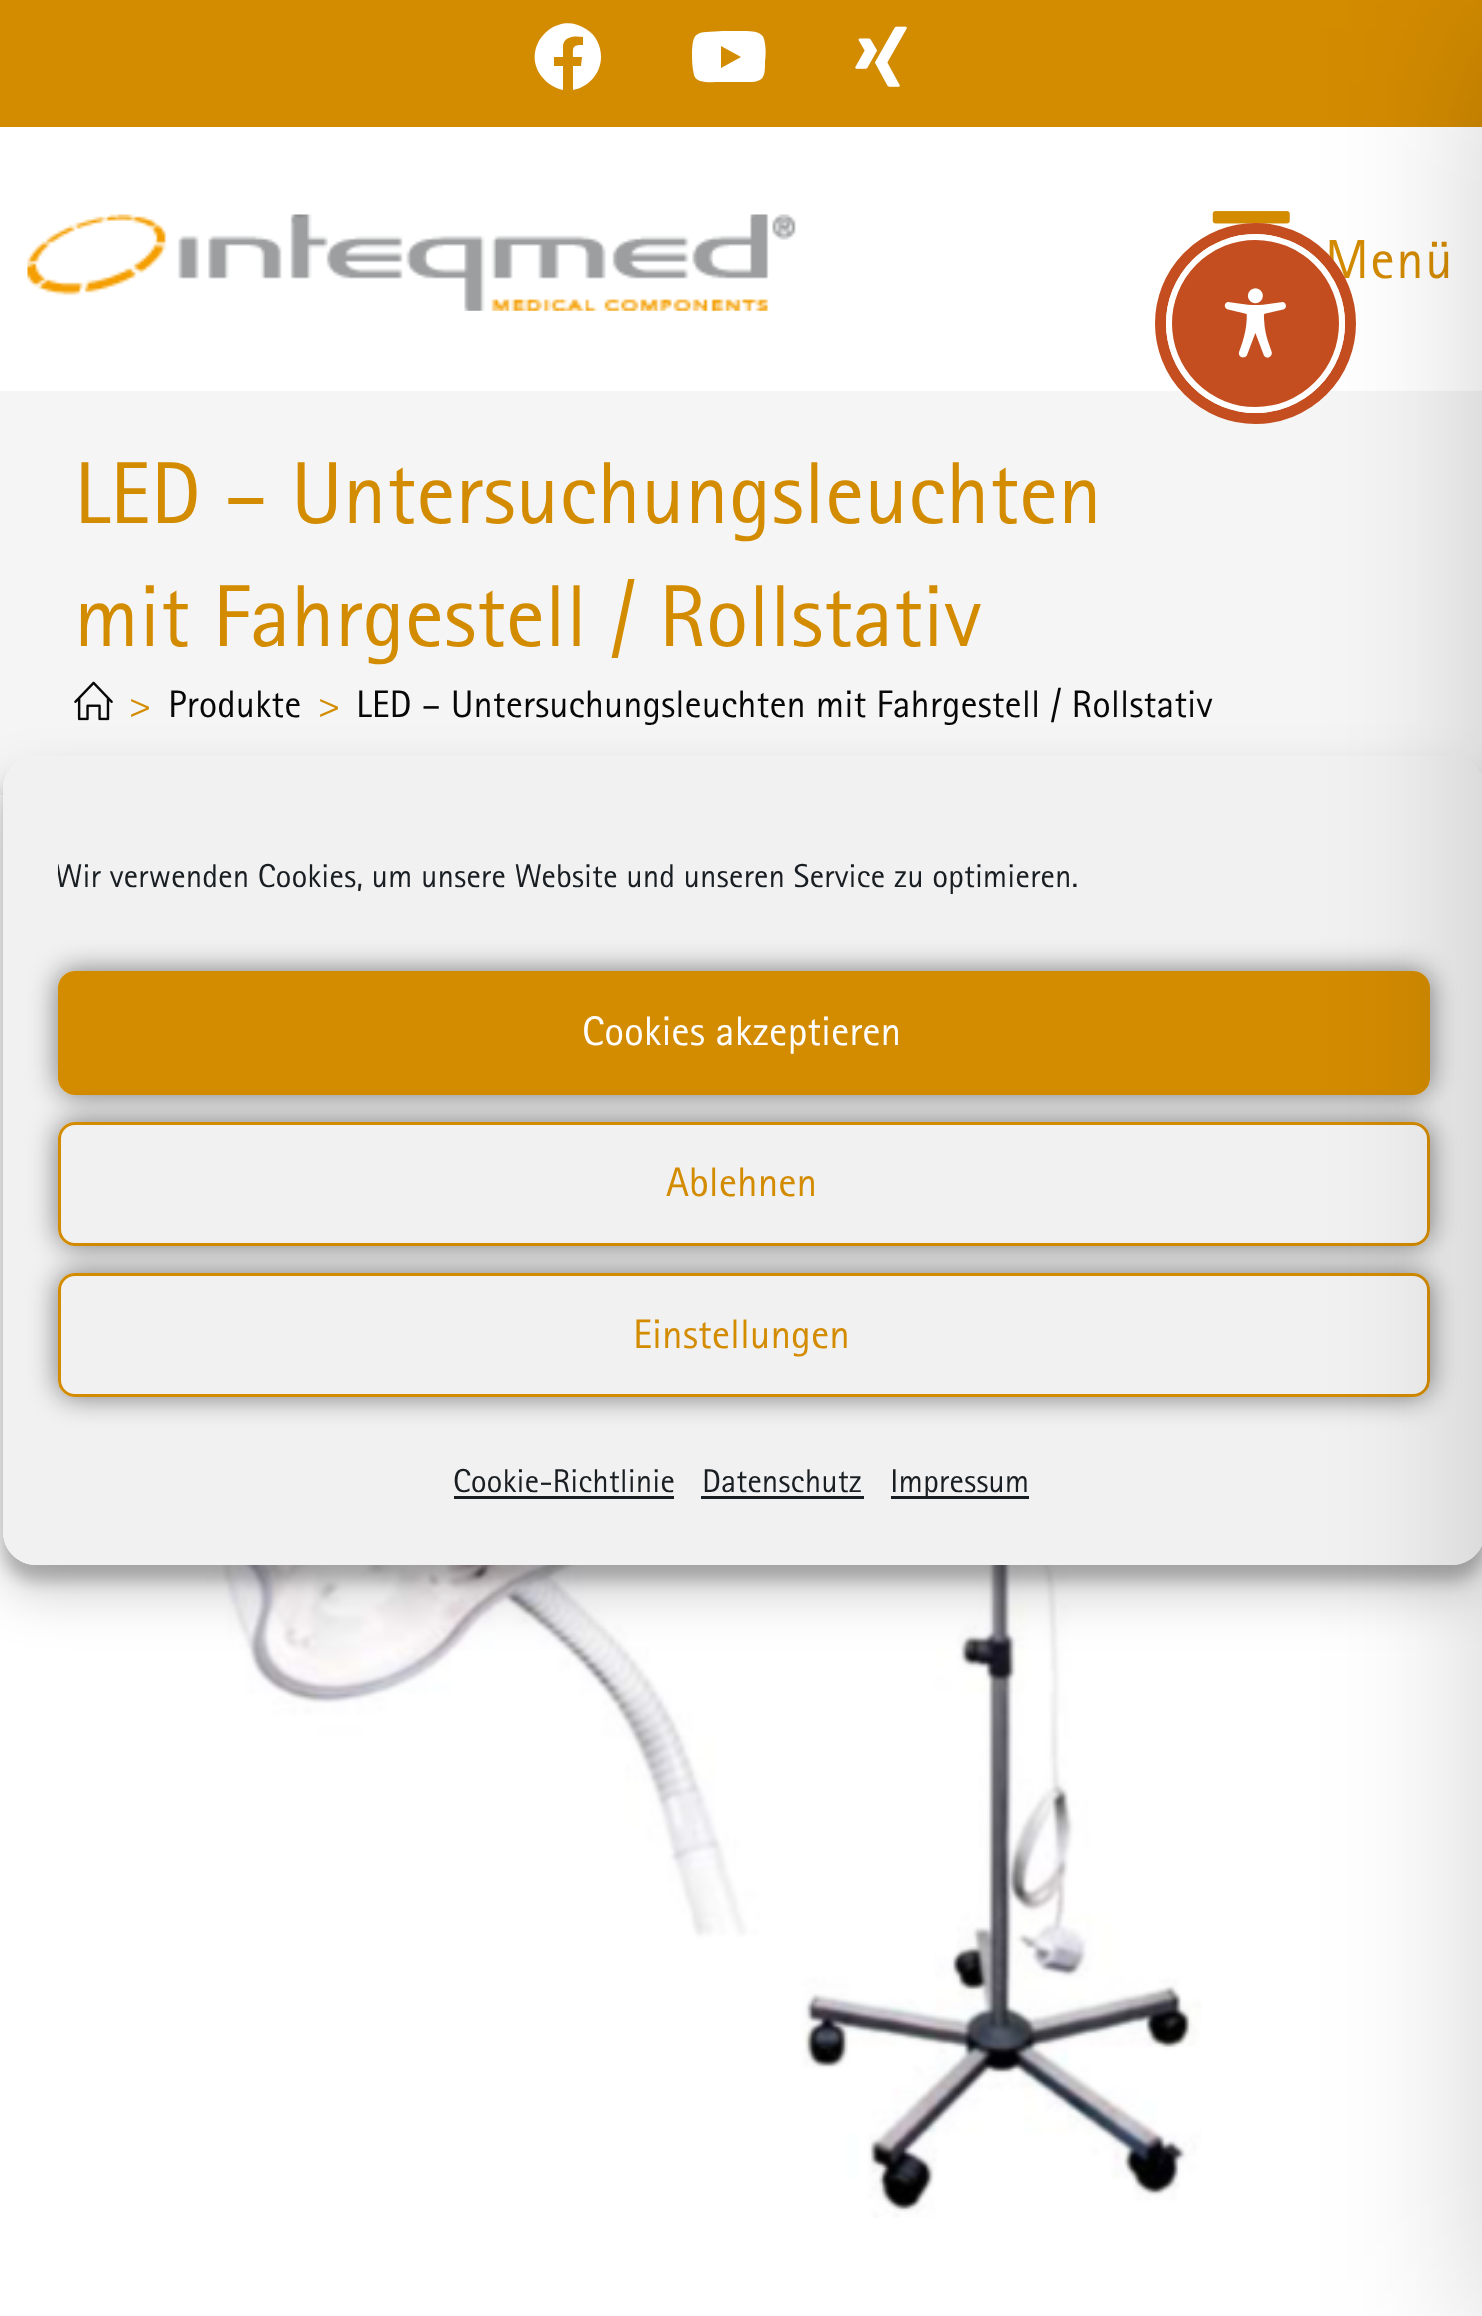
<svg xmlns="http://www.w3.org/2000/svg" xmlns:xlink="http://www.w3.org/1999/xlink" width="1482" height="2316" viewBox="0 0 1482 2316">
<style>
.cls-1{font:500 55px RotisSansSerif;letter-spacing:1.5px;fill:#d38b00}
.cls-2{font:500 88px RotisSansSerif;fill:#d38b00}
.cls-3{font:500 38.5px RotisSansSerif;fill:#d38b00}
.cls-4{font:500 38.5px RotisSansSerif;fill:#070707}
.cls-5{font:500 33px RotisSansSerif;fill:#191e23}
.cls-6{font:500 41.25px RotisSansSerif;fill:#ffffff}
.cls-7{font:500 41.25px RotisSansSerif;fill:#d38b00}
</style>
<defs>
<clipPath id="clip1"><path d="M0 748H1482V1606H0ZM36 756H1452C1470 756 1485 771 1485 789V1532C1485 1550 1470 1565 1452 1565H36C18 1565 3 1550 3 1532V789C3 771 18 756 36 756Z" clip-rule="evenodd"/></clipPath>
<clipPath id="clip2"><path d="M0 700H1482V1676H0ZM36 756H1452C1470 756 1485 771 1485 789V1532C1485 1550 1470 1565 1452 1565H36C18 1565 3 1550 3 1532V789C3 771 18 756 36 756Z" clip-rule="evenodd"/></clipPath>
<clipPath id="clip3"><path d="M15 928H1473V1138H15ZM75 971H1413C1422.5 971 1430 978.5 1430 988V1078C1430 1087.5 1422.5 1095 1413 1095H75C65.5 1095 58 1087.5 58 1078V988C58 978.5 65.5 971 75 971Z" clip-rule="evenodd"/></clipPath>
<clipPath id="clip4"><path d="M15 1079H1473V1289H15ZM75 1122H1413C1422.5 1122 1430 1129.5 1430 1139V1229C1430 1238.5 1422.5 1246 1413 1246H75C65.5 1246 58 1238.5 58 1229V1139C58 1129.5 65.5 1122 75 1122Z" clip-rule="evenodd"/></clipPath>
<clipPath id="clip5"><path d="M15 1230H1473V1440H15ZM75 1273H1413C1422.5 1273 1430 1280.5 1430 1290V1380C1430 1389.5 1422.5 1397 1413 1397H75C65.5 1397 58 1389.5 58 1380V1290C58 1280.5 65.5 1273 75 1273Z" clip-rule="evenodd"/></clipPath>
<clipPath id="clip6"><rect x="58" y="853" width="1372" height="63"/></clipPath>
</defs>
<rect width="100%" height="100%" fill="#ffffff"/>
<rect fill="#d38b00" x="0" y="0" width="1482" height="127"/>
<path fill="#ffffff" d="M601 57C601 73 589 87 573 90V66H581L582 57H573C573 47 572 45 583 45V37C575 36 565 36 563 45V57H554V66H563V90C555 88 548 84 543 78C518 49 555 8 586 29C596 35 601 46 601 57Z"/>
<path fill="#ffffff" d="M764 39C766 46 766 54 765 62C765 74 765 81 752 82H719C712 82 696 84 694 75C692 67 692 59 692 52C693 39 693 33 706 32L723 31H744C751 31 762 31 764 39ZM721 68L741 57L721 46Z"/>
<image xlink:href="image1.png" x="855" y="26" width="52" height="61"/>
<image xlink:href="image2.png" x="27" y="214" width="769" height="97"/>
<image xlink:href="image3.png" x="1212" y="211" width="78" height="35"/>
<rect fill="#f5f5f5" x="0" y="391" width="1482" height="404"/>
<image xlink:href="image4.png" x="74" y="681" width="39" height="40"/>
<image xlink:href="image5.png" x="183" y="1565" width="1019" height="653"/>
<g clip-path="url(#clip1)">
<rect fill="#000000" fill-opacity="0.23" filter="blur(8px)" x="3" y="773" width="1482" height="808" rx="33"/>
</g>
<g clip-path="url(#clip2)">
<rect fill="#000000" fill-opacity="0.19" filter="blur(27.5px)" x="3" y="784" width="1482" height="808" rx="33"/>
</g>
<rect fill="#f1f1f1" x="3" y="756" width="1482" height="809" rx="33"/>
<g clip-path="url(#clip3)">
<rect fill="#000000" fill-opacity="0.5" filter="blur(14px)" x="58" y="971" width="1372" height="124" rx="17"/>
</g>
<rect fill="#d38b00" stroke="#d38b00" stroke-width="3" x="59.5" y="972.5" width="1369" height="121" rx="15.5"/>
<g clip-path="url(#clip4)">
<rect fill="#000000" fill-opacity="0.5" filter="blur(14px)" x="58" y="1122" width="1372" height="124" rx="17"/>
</g>
<rect fill="#f1f1f1" stroke="#d38b00" stroke-width="3" x="59.5" y="1123.5" width="1369" height="121" rx="15.5"/>
<g clip-path="url(#clip5)">
<rect fill="#000000" fill-opacity="0.5" filter="blur(14px)" x="58" y="1273" width="1372" height="124" rx="17"/>
</g>
<rect fill="#f1f1f1" stroke="#d38b00" stroke-width="3" x="59.5" y="1274.5" width="1369" height="121" rx="15.5"/>
<rect fill="#191e23" x="454" y="1496" width="220" height="3"/>
<rect fill="#191e23" x="701" y="1496" width="163" height="3"/>
<rect fill="#191e23" x="891" y="1496" width="138" height="3"/>
<text class="cls-1" x="1325" y="278">Menü</text>
<circle fill="none" stroke="#c44e1f" stroke-width="11" cx="1255.5" cy="323.5" r="95"/>
<circle fill="#c44e1f" stroke="#ffffff" stroke-width="6" cx="1255.5" cy="323.5" r="86.5"/>
<image xlink:href="image0.png" x="1224" y="288" width="62" height="70"/>
<rect fill="#000000" fill-opacity="0.2" filter="blur(82.5px)" x="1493" y="28" width="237" height="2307"/>
<text class="cls-2"><tspan x="74" y="523">LED – Untersuchungsleuchten</tspan><tspan x="74" y="646">mit Fahrgestell / Rollstativ</tspan></text>
<text class="cls-3" x="129" y="717">&gt;</text>
<text class="cls-4" x="168" y="717">Produkte</text>
<text class="cls-3" x="318" y="717">&gt;</text>
<text class="cls-4" x="356" y="717">LED – Untersuchungsleuchten mit Fahrgestell / Rollstativ</text>
<g clip-path="url(#clip6)">
<text class="cls-5" x="55" y="887">Wir verwenden Cookies, um unsere Website und unseren Service zu optimieren.</text>
</g>
<text class="cls-6" x="582" y="1045">Cookies akzeptieren</text>
<text class="cls-7" x="666" y="1196">Ablehnen</text>
<text class="cls-7" x="633" y="1348">Einstellungen</text>
<text class="cls-5" x="453" y="1492">Cookie-Richtlinie</text>
<text class="cls-5" x="702" y="1492">Datenschutz</text>
<text class="cls-5" x="890" y="1492">Impressum</text>
</svg>
